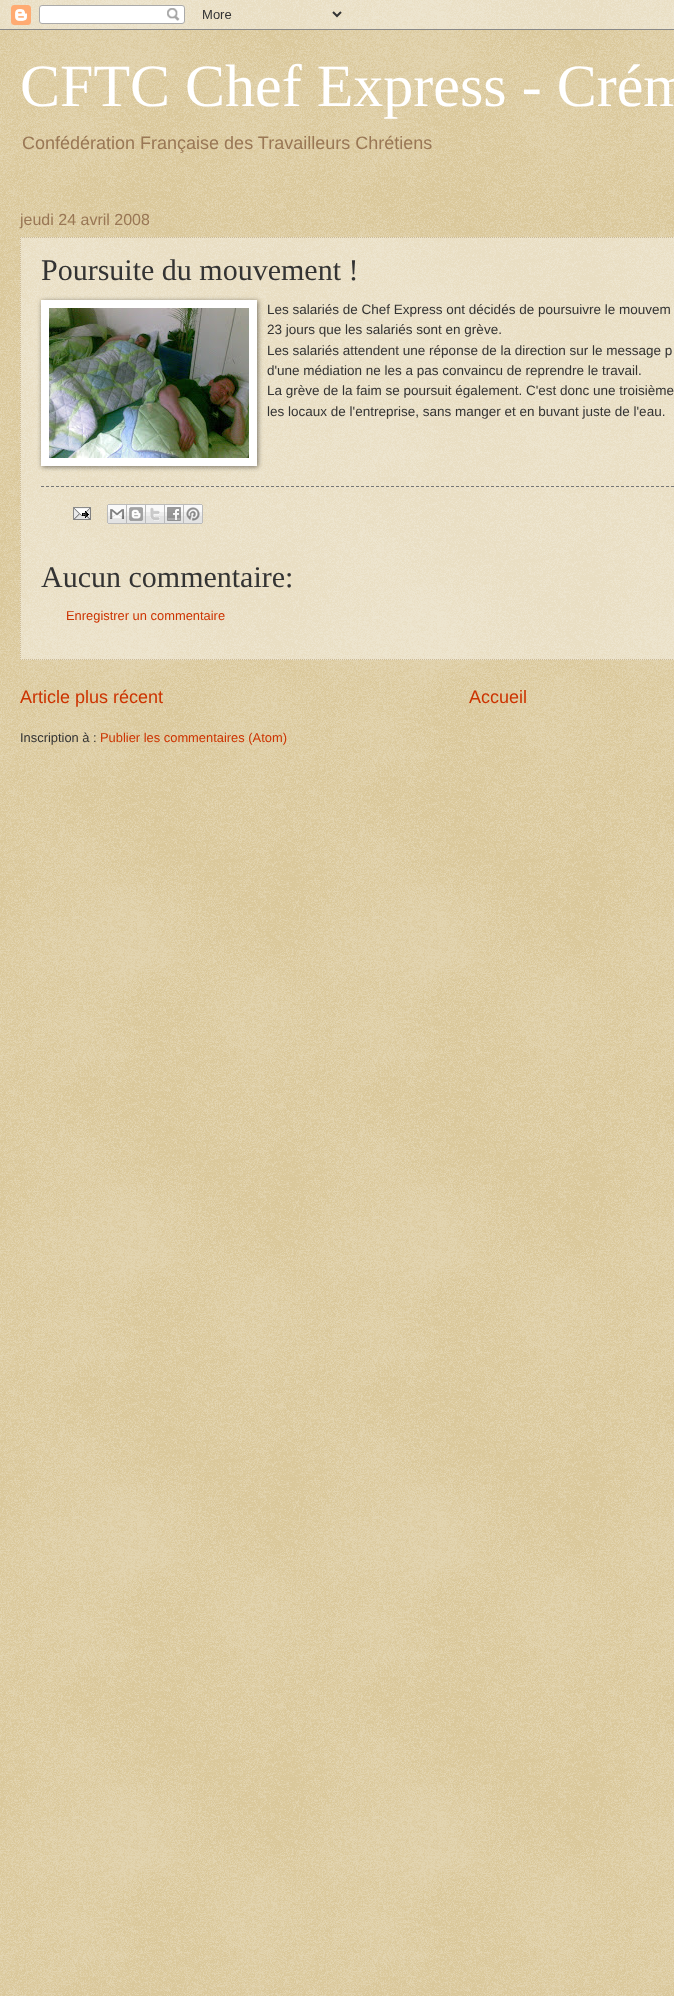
<svg xmlns="http://www.w3.org/2000/svg" xmlns:xlink="http://www.w3.org/1999/xlink" width="674" height="1996" viewBox="0 0 674 1996">
<style>
.cls-1{font:60px Liberation Serif;fill:#ffffff}
.cls-2{font:18px Liberation Sans;fill:#997755}
.cls-3{font:16px Liberation Sans;fill:#997755}
.cls-4{font:30px Liberation Serif;fill:#333333}
.cls-5{font:13.5px Liberation Sans;fill:#333333}
.cls-6{font:12.9px Liberation Sans;fill:#cc3300}
.cls-7{font:18px Liberation Sans;fill:#cc3300}
.cls-8{font:12.9px Liberation Sans;fill:#333333}
</style>
<rect width="100%" height="100%" fill="#c0a154"/>
<image xlink:href="image0.png" x="0" y="0" width="674" height="1996"/>
<image xlink:href="image1.png" x="0" y="0" width="674" height="30"/>
<rect fill="#ffffff" fill-opacity="0.4" x="20" y="237" width="654" height="423"/>
<path fill="none" stroke="#ccbb99" stroke-dasharray="1 1" d="M20 237.5H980"/>
<path fill="none" stroke="#ccbb99" stroke-dasharray="1 1" d="M20 659.5H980"/>
<path fill="none" stroke="#ccbb99" stroke-dasharray="1 1" d="M20.5 237V660"/>
<rect fill="#000000" fill-opacity="0.5" filter="blur(2.5px)" x="42" y="301" width="216" height="166"/>
<rect fill="#ffffff" x="41" y="300" width="216" height="166"/>
<image xlink:href="image2.png" x="49" y="308" width="200" height="150"/>
<path fill="none" stroke="#777777" stroke-dasharray="3 2" d="M41 486.5H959"/>
<image xlink:href="image3.png" x="73" y="507" width="18" height="13"/>
<image xlink:href="image4.png" x="107" y="504" width="20" height="20"/>
<image xlink:href="image5.png" x="127" y="504" width="19" height="20"/>
<image xlink:href="image6.png" x="146" y="504" width="19" height="20"/>
<image xlink:href="image7.png" x="165" y="504" width="19" height="20"/>
<image xlink:href="image8.png" x="184" y="504" width="19" height="20"/>
<text class="cls-1" x="20" y="106">CFTC Chef Express - Crém</text>
<text class="cls-2" x="22" y="149">Confédération Française des Travailleurs Chrétiens</text>
<text class="cls-3" x="20" y="225">jeudi 24 avril 2008</text>
<text class="cls-4" x="41" y="280">Poursuite du mouvement !</text>
<text class="cls-5"><tspan x="267" y="314">Les salariés de Chef Express ont décidés de poursuivre le mouvem</tspan><tspan x="267" y="334">23 jours que les salariés sont en grève.</tspan><tspan x="267" y="355">Les salariés attendent une réponse de la direction sur le message p</tspan><tspan x="267" y="375">d'une médiation ne les a pas convaincu de reprendre le travail.</tspan><tspan x="267" y="395">La grève de la faim se poursuit également. C'est donc une troisième</tspan><tspan x="267" y="416">les locaux de l'entreprise, sans manger et en buvant juste de l'eau.</tspan></text>
<text class="cls-4" x="41" y="587">Aucun commentaire:</text>
<text class="cls-6" x="66" y="620">Enregistrer un commentaire</text>
<text class="cls-7" x="20" y="703">Article plus récent</text>
<text class="cls-7" x="469" y="703">Accueil</text>
<text class="cls-8" x="20" y="742">Inscription à :</text>
<text class="cls-6" x="100" y="742">Publier les commentaires (Atom)</text>
</svg>
